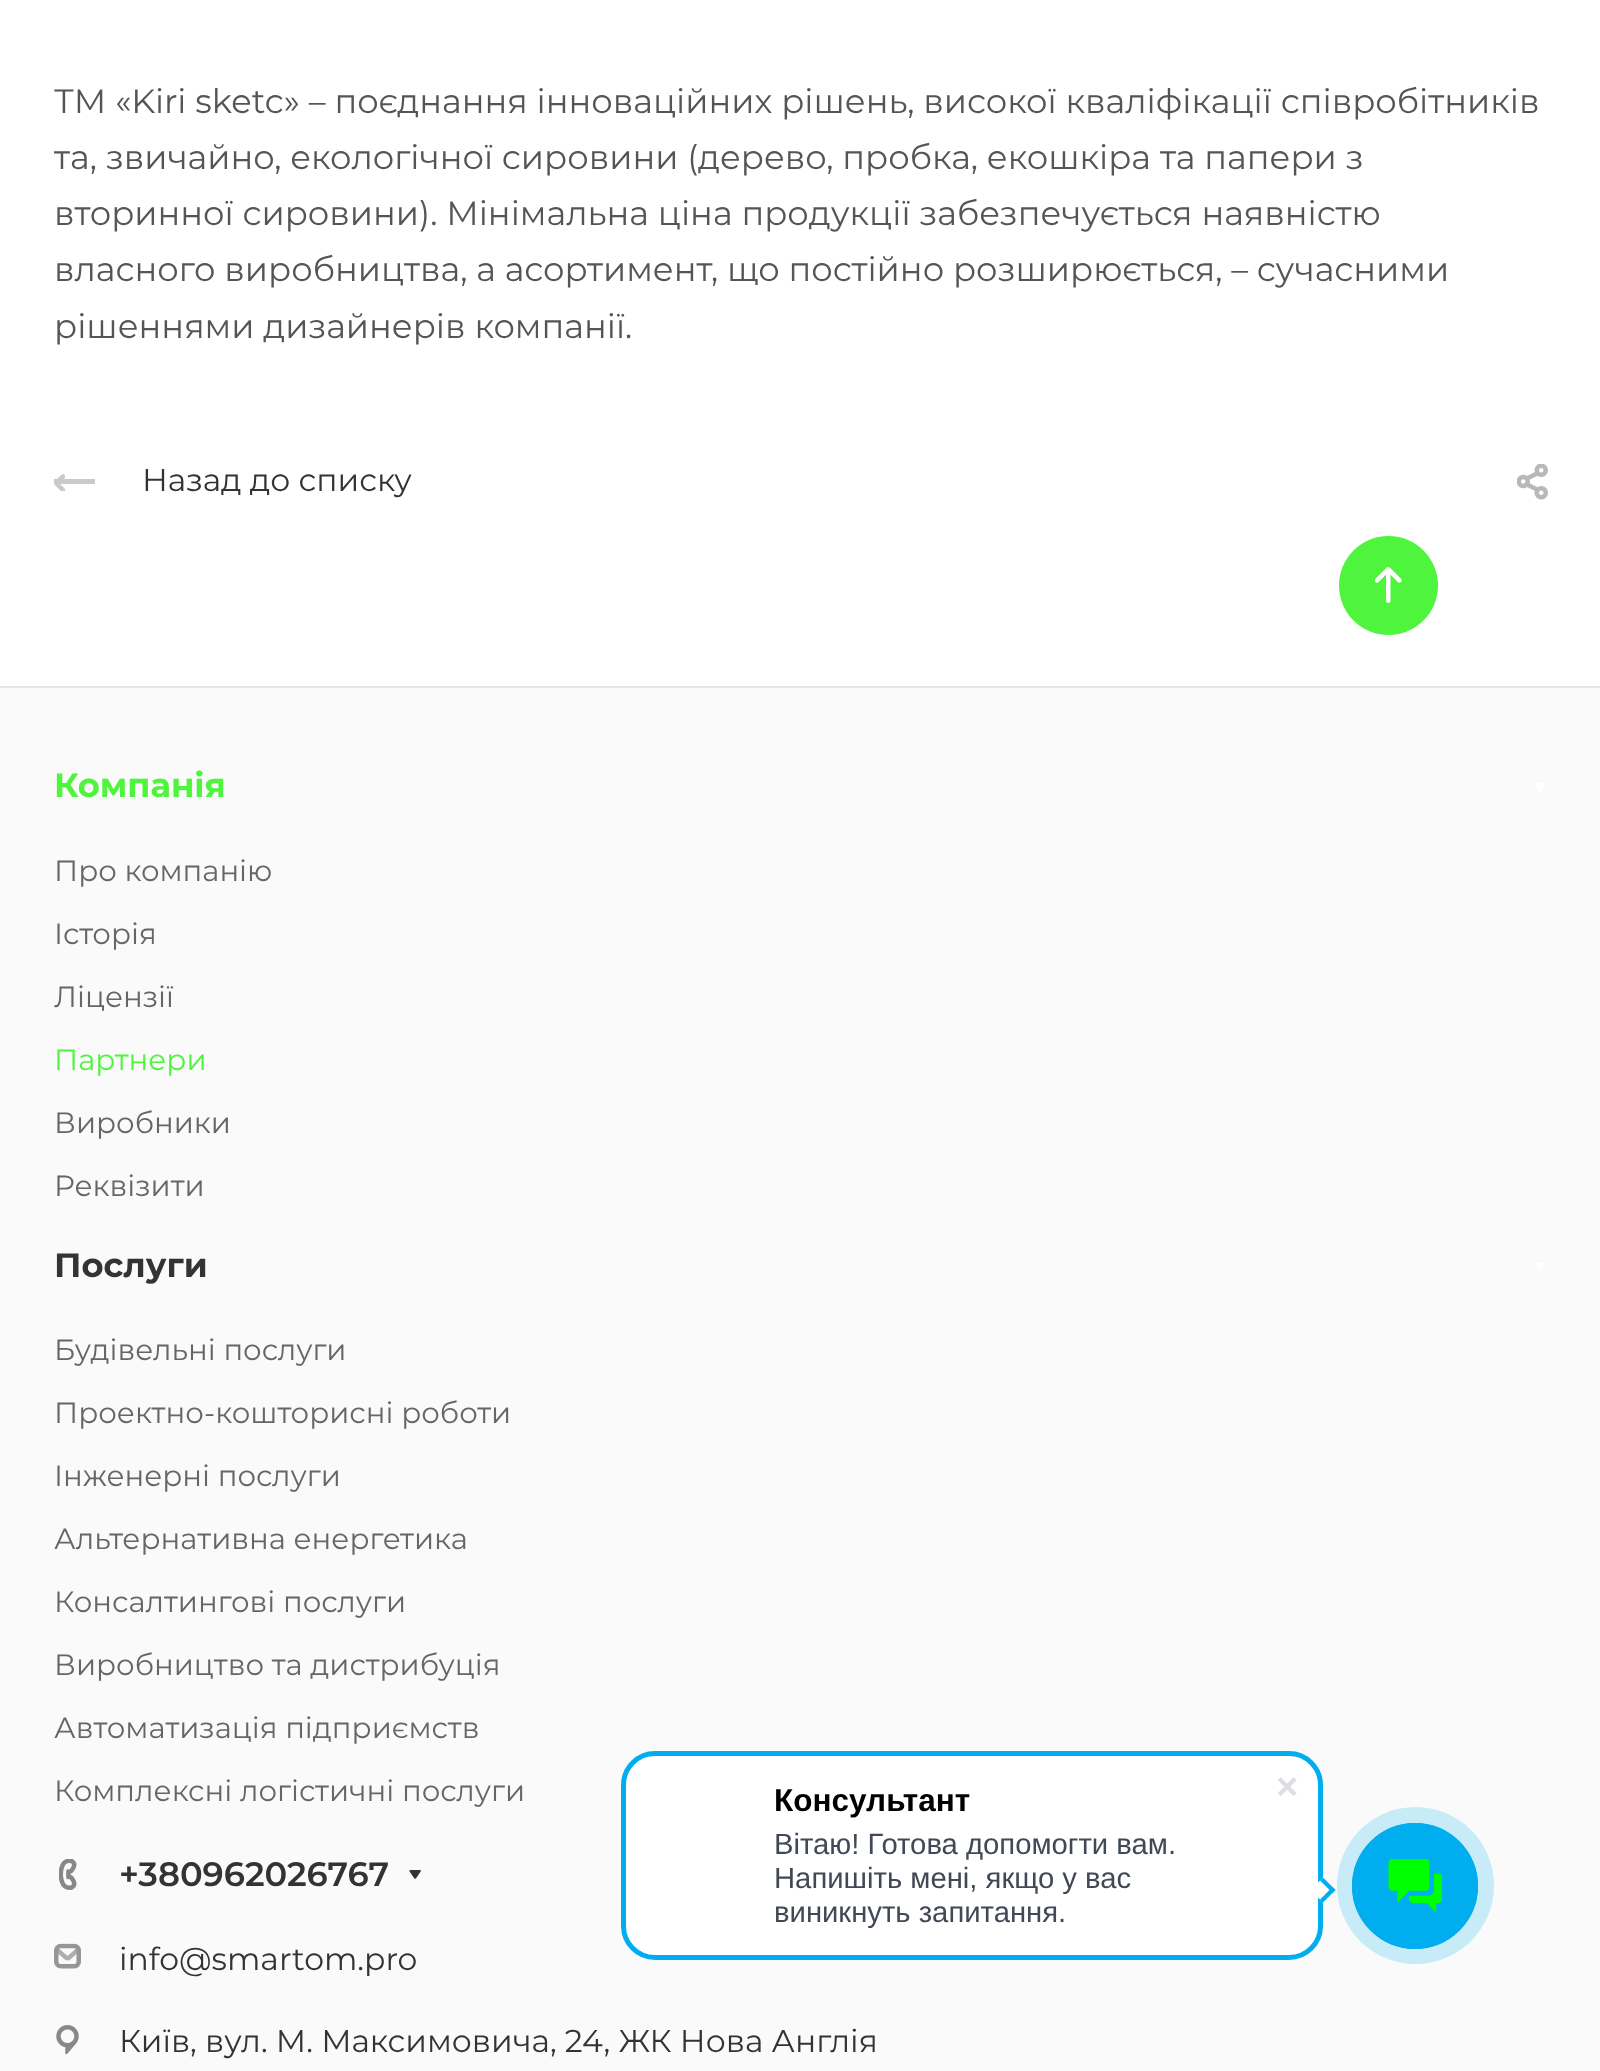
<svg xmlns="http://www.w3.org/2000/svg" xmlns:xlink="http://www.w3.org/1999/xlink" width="1600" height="2071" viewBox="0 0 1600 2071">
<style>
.cls-1{font:33.75px Montserrat;fill:#555555}
.cls-2{font:31.5px Montserrat;fill:#333333}
.cls-3{font:bold 33.75px Montserrat;fill:#4ff43d}
.cls-4{font:29.25px Montserrat;fill:#666666}
.cls-5{font:29.25px Montserrat;fill:#4ff43d}
.cls-6{font:bold 33.75px Montserrat;fill:#333333}
.cls-7{font:600 33.75px Montserrat;fill:#333333}
.cls-8{font:bold 31.5px Liberation Sans;fill:#000000}
.cls-9{font:29.25px Liberation Sans;fill:#424956}
</style>
<defs>
<clipPath id="clip1"><rect x="54" y="473" width="11" height="18"/></clipPath>
</defs>
<rect width="100%" height="100%" fill="#ffffff"/>
<g clip-path="url(#clip1)">
<path fill="none" stroke="#cacaca" stroke-width="4.5" stroke-linecap="round" stroke-linejoin="round" d="M63 490L56 483L63 476.5"/>
</g>
<rect fill="#cacaca" x="54" y="479" width="41" height="5"/>
<image xlink:href="image0.png" x="1517" y="464" width="31" height="36"/>
<circle fill="#4ff43d" cx="1388.5" cy="585.5" r="49.5"/>
<image xlink:href="image1.png" x="1375" y="567" width="27" height="36"/>
<rect fill="#fafafa" x="0" y="688" width="1600" height="1383"/>
<rect fill="#e5e5e5" x="0" y="686" width="1600" height="2"/>
<image xlink:href="image2.png" x="1535" y="783" width="10" height="9"/>
<image xlink:href="image3.png" x="1535" y="1263" width="10" height="8"/>
<image xlink:href="image4.png" x="59" y="1859" width="18" height="31"/>
<image xlink:href="image5.png" x="409" y="1870" width="12" height="9"/>
<image xlink:href="image6.png" x="54" y="1943" width="27" height="26"/>
<image xlink:href="image7.png" x="56" y="2025" width="23" height="30"/>
<rect fill="#ffffff" stroke="#00aeef" stroke-width="5" x="623.5" y="1753.5" width="697" height="204" rx="31.5"/>
<image xlink:href="image8.png" x="1278" y="1777" width="19" height="19"/>
<path fill="#ffffff" d="M1310.5 1890L1323 1877.5L1335.5 1890L1323 1902.5Z"/>
<path fill="#00aeef" d="M1320 1880.5L1323 1877.5L1335.5 1890L1332.5 1893Z"/>
<path fill="#00aeef" d="M1320 1899.5L1332.5 1887L1335.5 1890L1323 1902.5Z"/>
<circle fill="#c8ebf8" cx="1415.5" cy="1885.5" r="78.5"/>
<circle fill="none" stroke="#00aeef" stroke-width="2" cx="1415" cy="1886" r="62"/>
<circle fill="#00aeef" cx="1415" cy="1886" r="63"/>
<image xlink:href="image9.png" x="1388" y="1859" width="54" height="54"/>
<text class="cls-1"><tspan x="54" y="113">ТМ «Kiri sketc» – поєднання інноваційних рішень, високої кваліфікації співробітників</tspan><tspan x="54" y="169">та, звичайно, екологічної сировини (дерево, пробка, екошкіра та папери з</tspan><tspan x="54" y="225">вторинної сировини). Мінімальна ціна продукції забезпечується наявністю</tspan><tspan x="54" y="281">власного виробництва, а асортимент, що постійно розширюється, – сучасними</tspan><tspan x="54" y="338">рішеннями дизайнерів компанії.</tspan></text>
<text class="cls-2" x="142" y="491">Назад до списку</text>
<text class="cls-3" x="54" y="797">Компанія</text>
<text class="cls-4" x="54" y="881">Про компанію</text>
<text class="cls-4" x="54" y="944">Історія</text>
<text class="cls-4" x="54" y="1007">Ліцензії</text>
<text class="cls-5" x="54" y="1070">Партнери</text>
<text class="cls-4" x="54" y="1133">Виробники</text>
<text class="cls-4" x="54" y="1196">Реквізити</text>
<text class="cls-6" x="54" y="1277">Послуги</text>
<text class="cls-4" x="54" y="1360">Будівельні послуги</text>
<text class="cls-4" x="54" y="1423">Проектно-кошторисні роботи</text>
<text class="cls-4" x="54" y="1486">Інженерні послуги</text>
<text class="cls-4" x="54" y="1549">Альтернативна енергетика</text>
<text class="cls-4" x="54" y="1612">Консалтингові послуги</text>
<text class="cls-4" x="54" y="1675">Виробництво та дистрибуція</text>
<text class="cls-4" x="54" y="1738">Автоматизація підприємств</text>
<text class="cls-4" x="54" y="1801">Комплексні логістичні послуги</text>
<text class="cls-7" x="119" y="1886">+380962026767</text>
<text class="cls-2" x="119" y="1970">info@smartom.pro</text>
<text class="cls-2" x="119" y="2052">Київ, вул. М. Максимовича, 24, ЖК Нова Англія</text>
<text class="cls-8" x="774" y="1811">Консультант</text>
<text class="cls-9"><tspan x="774" y="1854">Вітаю! Готова допомогти вам.</tspan><tspan x="774" y="1888">Напишіть мені, якщо у вас</tspan><tspan x="774" y="1922">виникнуть запитання.</tspan></text>
</svg>
